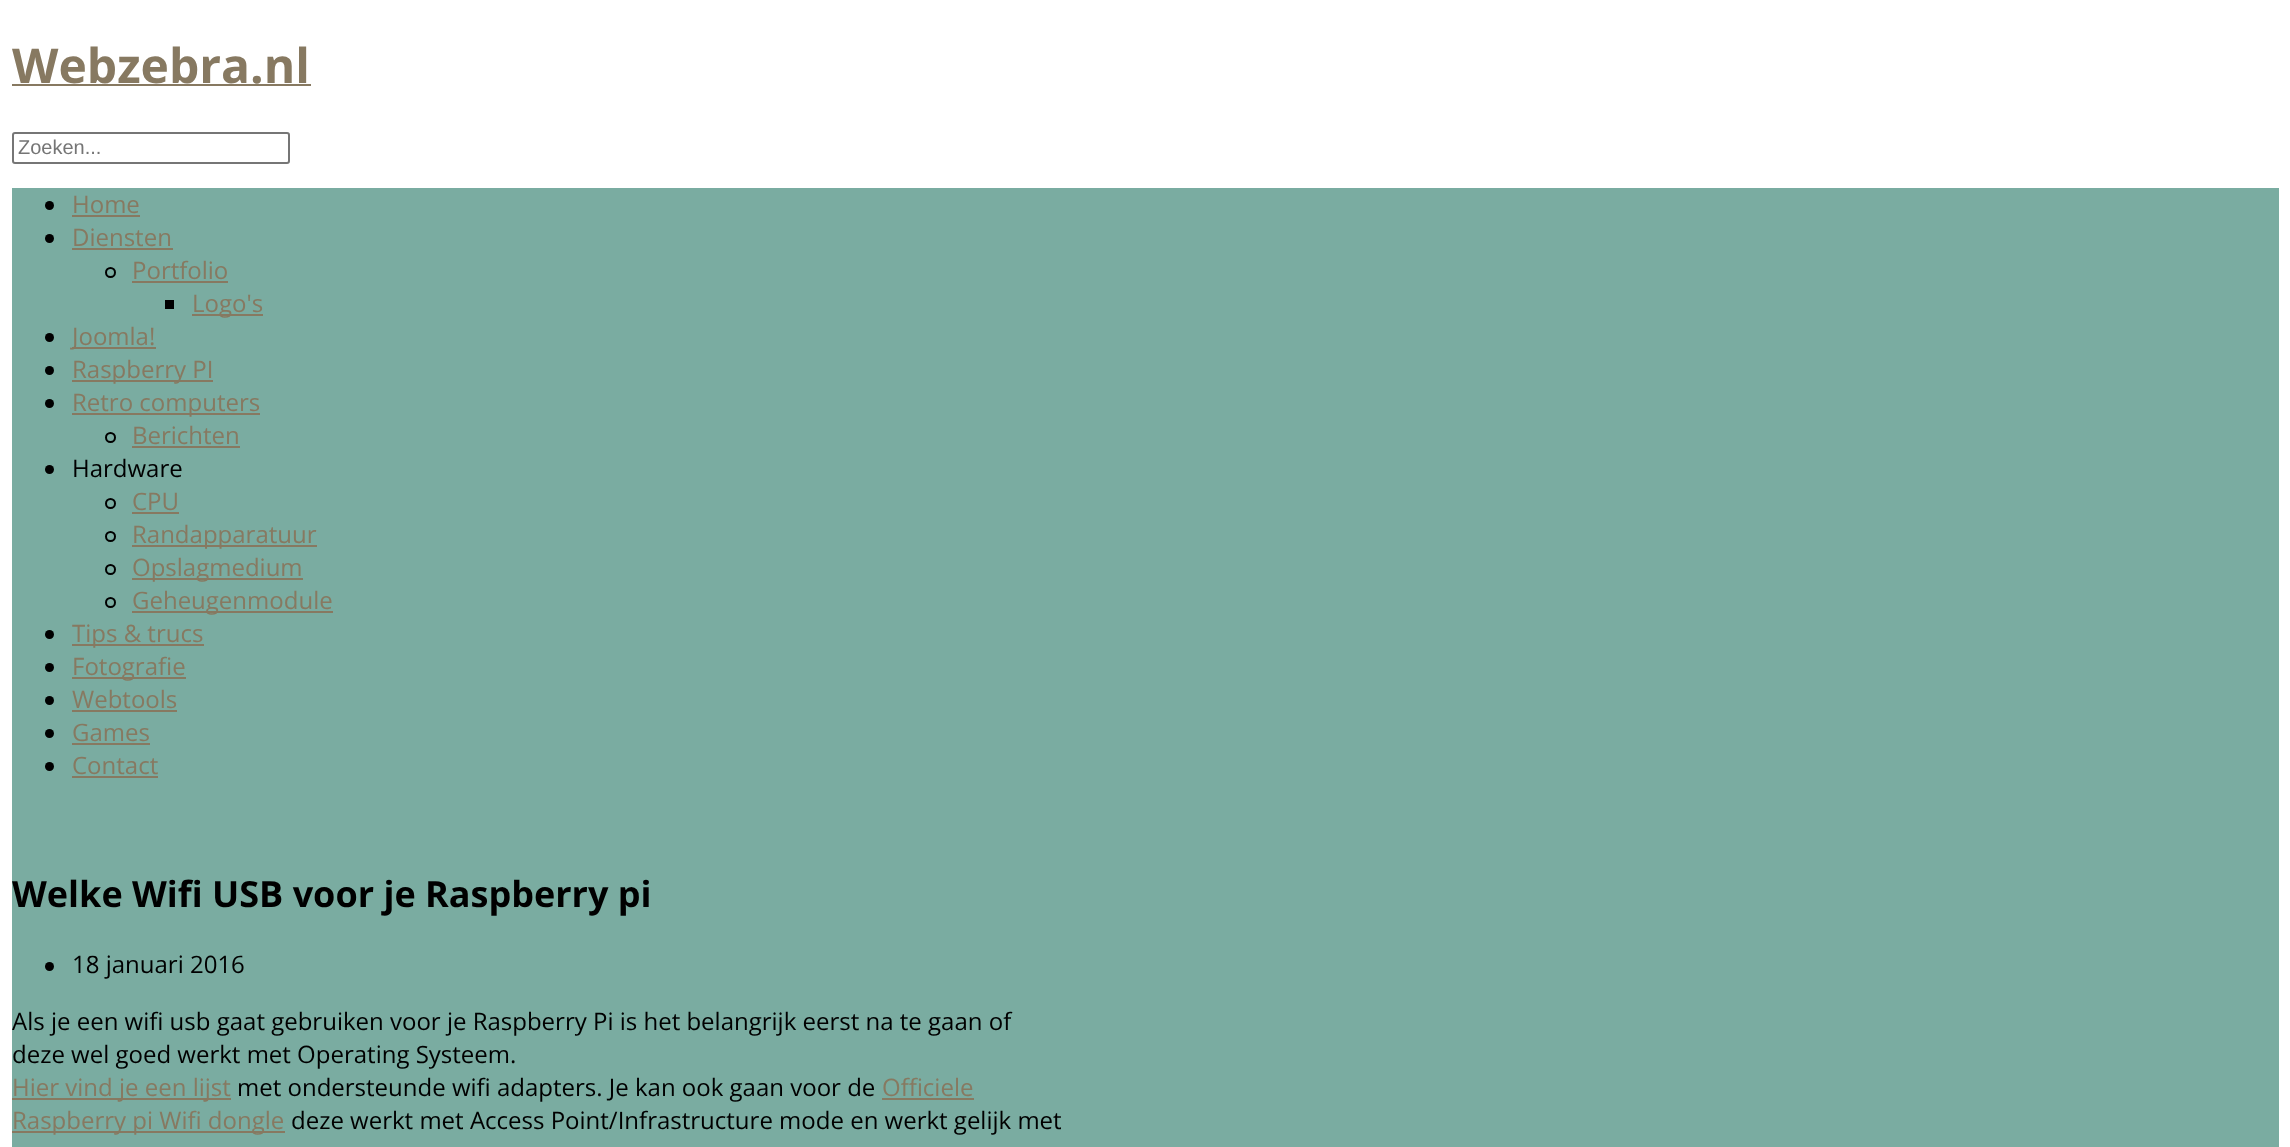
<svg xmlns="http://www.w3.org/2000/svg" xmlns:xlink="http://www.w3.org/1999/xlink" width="2290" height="1147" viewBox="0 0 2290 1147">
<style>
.cls-1{font:bold 48px Open Sans;fill:#877961}
.cls-2{font:20px Liberation Sans;fill:#757575}
.cls-3{font:24px Open Sans;fill:#877961}
.cls-4{font:24px Open Sans;fill:#000000}
.cls-5{font:bold 36px Open Sans;fill:#000000}
</style>
<rect width="100%" height="100%" fill="#ffffff"/>
<rect fill="#877961" x="12" y="84" width="299" height="2"/>
<rect fill="none" stroke="#767676" stroke-width="2" x="13" y="133" width="276" height="30" rx="2"/>
<rect fill="#7aaca1" x="12" y="188" width="2267" height="959"/>
<circle fill="#000000" cx="49.5" cy="205.5" r="4.5"/>
<rect fill="#877961" x="72" y="215" width="68" height="2"/>
<circle fill="#000000" cx="49.5" cy="238.5" r="4.5"/>
<rect fill="#877961" x="72" y="248" width="101" height="2"/>
<circle fill="none" stroke="#000000" stroke-width="2" cx="110.5" cy="272.5" r="4.5"/>
<rect fill="#877961" x="132" y="281" width="96" height="2"/>
<rect fill="#000000" x="165" y="300" width="9" height="9"/>
<rect fill="#877961" x="192" y="314" width="71" height="2"/>
<circle fill="#000000" cx="49.5" cy="337.5" r="4.5"/>
<rect fill="#877961" x="72" y="347" width="84" height="2"/>
<circle fill="#000000" cx="49.5" cy="370.5" r="4.5"/>
<rect fill="#877961" x="72" y="380" width="141" height="2"/>
<circle fill="#000000" cx="49.5" cy="403.5" r="4.5"/>
<rect fill="#877961" x="72" y="413" width="188" height="2"/>
<circle fill="none" stroke="#000000" stroke-width="2" cx="110.5" cy="437.5" r="4.5"/>
<rect fill="#877961" x="132" y="446" width="108" height="2"/>
<circle fill="#000000" cx="49.5" cy="469.5" r="4.5"/>
<circle fill="none" stroke="#000000" stroke-width="2" cx="110.5" cy="503.5" r="4.5"/>
<rect fill="#877961" x="132" y="512" width="47" height="2"/>
<circle fill="none" stroke="#000000" stroke-width="2" cx="110.5" cy="536.5" r="4.5"/>
<rect fill="#877961" x="132" y="545" width="185" height="2"/>
<circle fill="none" stroke="#000000" stroke-width="2" cx="110.5" cy="569.5" r="4.5"/>
<rect fill="#877961" x="132" y="578" width="171" height="2"/>
<circle fill="none" stroke="#000000" stroke-width="2" cx="110.5" cy="602.5" r="4.5"/>
<rect fill="#877961" x="132" y="611" width="201" height="2"/>
<circle fill="#000000" cx="49.5" cy="634.5" r="4.5"/>
<rect fill="#877961" x="72" y="644" width="132" height="2"/>
<circle fill="#000000" cx="49.5" cy="667.5" r="4.5"/>
<rect fill="#877961" x="72" y="677" width="114" height="2"/>
<circle fill="#000000" cx="49.5" cy="700.5" r="4.5"/>
<rect fill="#877961" x="72" y="710" width="105" height="2"/>
<circle fill="#000000" cx="49.5" cy="733.5" r="4.5"/>
<rect fill="#877961" x="72" y="743" width="78" height="2"/>
<circle fill="#000000" cx="49.5" cy="766.5" r="4.5"/>
<rect fill="#877961" x="72" y="776" width="86" height="2"/>
<circle fill="#000000" cx="49.5" cy="966.5" r="4.5"/>
<rect fill="#877961" x="12" y="1098" width="219" height="2"/>
<rect fill="#877961" x="882" y="1098" width="92" height="2"/>
<rect fill="#877961" x="12" y="1131" width="273" height="2"/>
<text class="cls-1" x="12" y="83">Webzebra.nl</text>
<text class="cls-2" x="18" y="154">Zoeken...</text>
<text class="cls-3"><tspan x="72" y="213">Home</tspan><tspan x="72" y="246">Diensten</tspan></text>
<text class="cls-3" x="132" y="279">Portfolio</text>
<text class="cls-3" x="192" y="312">Logo's</text>
<text class="cls-3"><tspan x="72" y="345">Joomla!</tspan><tspan x="72" y="378">Raspberry PI</tspan><tspan x="72" y="411">Retro computers</tspan></text>
<text class="cls-3" x="132" y="444">Berichten</text>
<text class="cls-4" x="72" y="477">Hardware</text>
<text class="cls-3"><tspan x="132" y="510">CPU</tspan><tspan x="132" y="543">Randapparatuur</tspan><tspan x="132" y="576">Opslagmedium</tspan><tspan x="132" y="609">Geheugenmodule</tspan></text>
<text class="cls-3"><tspan x="72" y="642">Tips &amp; trucs</tspan><tspan x="72" y="675">Fotografie</tspan><tspan x="72" y="708">Webtools</tspan><tspan x="72" y="741">Games</tspan><tspan x="72" y="774">Contact</tspan></text>
<text class="cls-5" x="12" y="907">Welke Wifi USB voor je Raspberry pi</text>
<text class="cls-4" x="72" y="973">18 januari 2016</text>
<text class="cls-4"><tspan x="12" y="1030">Als je een wifi usb gaat gebruiken voor je Raspberry Pi is het belangrijk eerst na te gaan of</tspan><tspan x="12" y="1063">deze wel goed werkt met Operating Systeem.</tspan></text>
<text class="cls-3" x="12" y="1096">Hier vind je een lijst</text>
<text class="cls-4" x="237" y="1096">met ondersteunde wifi adapters. Je kan ook gaan voor de</text>
<text class="cls-3" x="882" y="1096">Officiele</text>
<text class="cls-3" x="12" y="1129">Raspberry pi Wifi dongle</text>
<text class="cls-4" x="291" y="1129">deze werkt met Access Point/Infrastructure mode en werkt gelijk met</text>
</svg>
